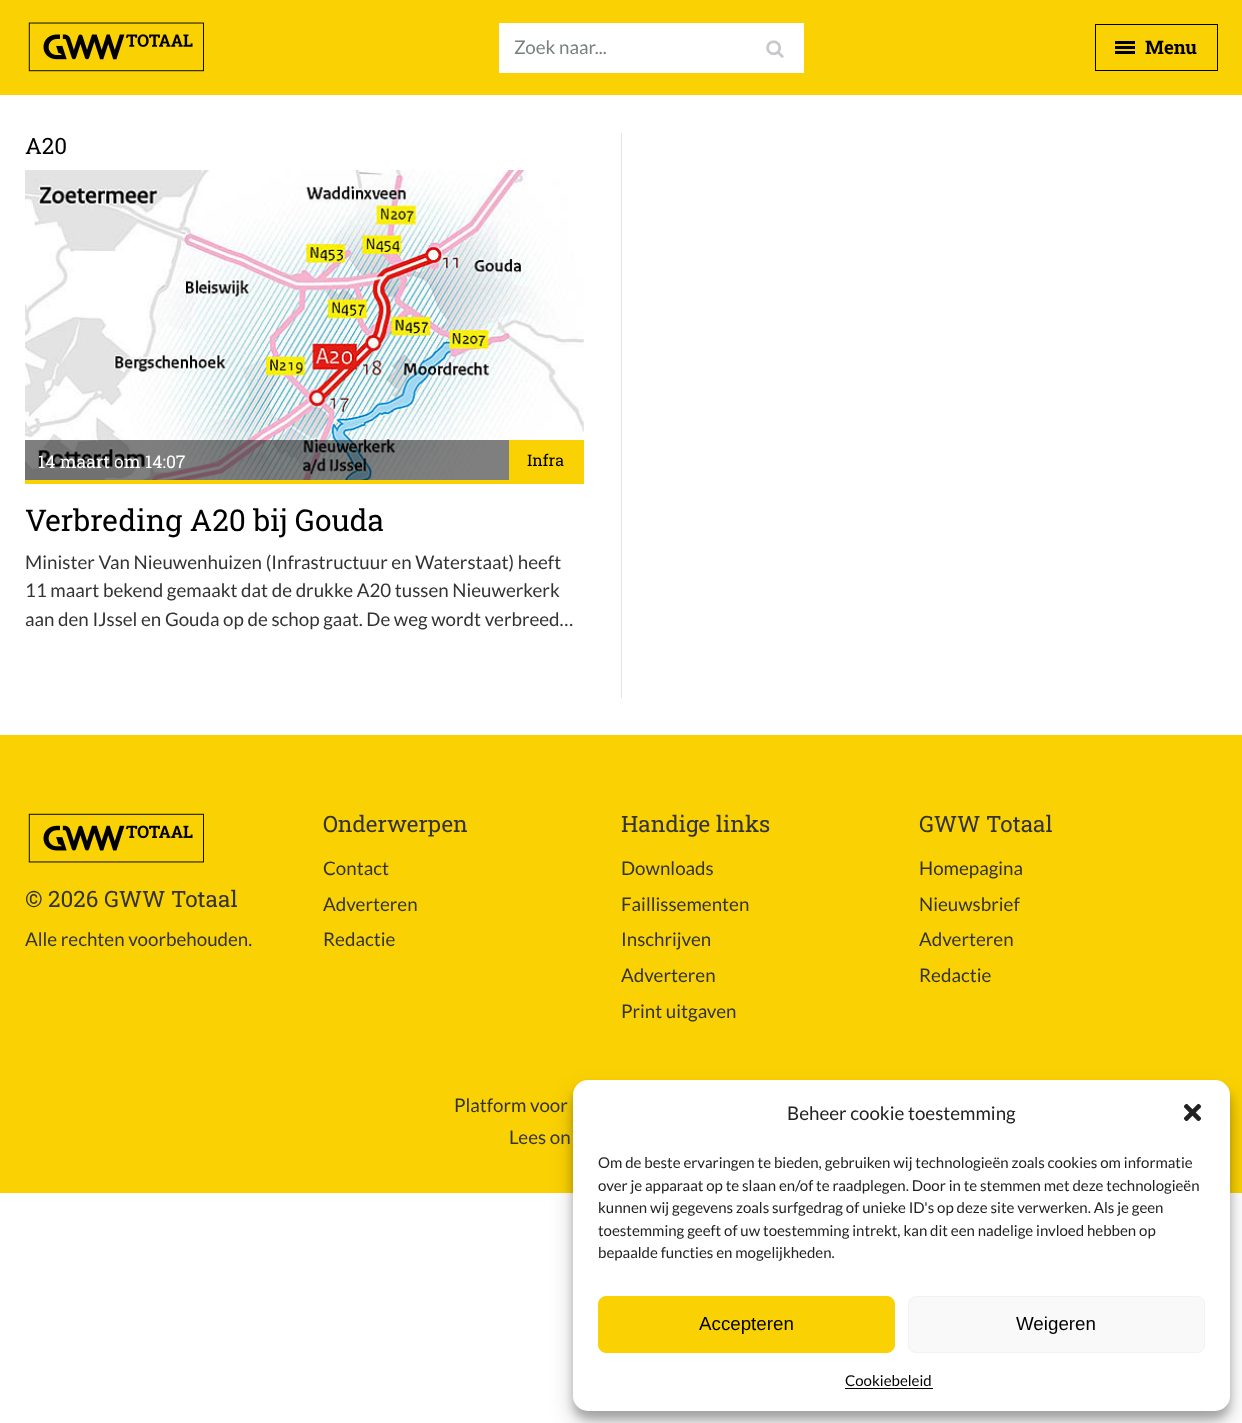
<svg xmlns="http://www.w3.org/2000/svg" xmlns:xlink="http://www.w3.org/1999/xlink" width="1242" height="1423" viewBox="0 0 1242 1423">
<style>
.cls-1{font:18.75px Lato;fill:#798080}
.cls-2{font:bold 18.75px Roboto Slab;fill:#000000}
.cls-3{font:22.5px Roboto Slab;fill:#000000}
.cls-4{font:17.5px Roboto Slab;fill:#ffffff}
.cls-5{font:16px Roboto Slab;fill:#000000}
.cls-6{font:30px Roboto Slab;fill:#000000}
.cls-7{font:18.75px Lato;fill:#333333}
.cls-8{font:22.5px Roboto Slab;fill:#333333}
.cls-9{font:18.75px Lato;fill:#222222}
.cls-10{font:15px Lato;fill:#222222}
.cls-11{font:18.75px Liberation Sans;fill:#000000}
.cls-12{font:15px Lato;fill:#000000}
</style>
<rect width="100%" height="100%" fill="#ffffff"/>
<rect fill="#fad203" x="0" y="0" width="1242" height="95"/>
<image xlink:href="image0.png" x="28" y="22" width="176" height="50"/>
<rect fill="#ffffff" x="499" y="23" width="305" height="50"/>
<image xlink:href="image1.png" x="766" y="40" width="18" height="18"/>
<rect fill="none" stroke="#000000" x="1095.5" y="24.5" width="122" height="46"/>
<rect fill="#000000" x="1115" y="46" width="20" height="3"/>
<rect fill="#000000" x="1115" y="41" width="20" height="3"/>
<rect fill="#000000" x="1115" y="51" width="20" height="3"/>
<image xlink:href="image2.png" x="25" y="170" width="559" height="310"/>
<rect fill="#000000" fill-opacity="0.5" x="25" y="440" width="484" height="40"/>
<rect fill="#fad203" x="25" y="480" width="559" height="4"/>
<rect fill="#fad203" x="509" y="440" width="75" height="40"/>
<rect fill="#e4e4e4" x="621" y="133" width="1" height="565"/>
<rect fill="#fad203" x="0" y="735" width="1242" height="458"/>
<image xlink:href="image3.png" x="28" y="813" width="176" height="50"/>
<rect fill="#000000" fill-opacity="0.23" filter="blur(4px)" x="573" y="1088" width="657" height="331" rx="15"/>
<rect fill="#000000" fill-opacity="0.19" filter="blur(12.5px)" x="573" y="1093" width="657" height="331" rx="15"/>
<rect fill="#ffffff" x="573" y="1080" width="657" height="331" rx="15"/>
<image xlink:href="image4.png" x="1183" y="1103" width="19" height="19"/>
<rect fill="#fad203" stroke="#fad203" x="598.5" y="1296.5" width="296" height="56" rx="7.5"/>
<rect fill="#f9f9f9" stroke="#f2f2f2" x="908.5" y="1296.5" width="296" height="56" rx="7.5"/>
<rect fill="#000000" x="845" y="1388" width="88" height="1"/>
<text class="cls-1" x="514" y="54">Zoek naar...</text>
<text class="cls-2" x="1145" y="54">Menu</text>
<text class="cls-3" x="25" y="154">A20</text>
<text class="cls-4" x="38" y="468">14 maart om 14:07</text>
<text class="cls-5" x="527" y="466">Infra</text>
<text class="cls-6" x="25" y="531">Verbreding A20 bij Gouda</text>
<text class="cls-7"><tspan x="25" y="569">Minister Van Nieuwenhuizen (Infrastructuur en Waterstaat) heeft</tspan><tspan x="25" y="597">11 maart bekend gemaakt dat de drukke A20 tussen Nieuwerkerk</tspan><tspan x="25" y="626">aan den IJssel en Gouda op de schop gaat. De weg wordt verbreed…</tspan></text>
<text class="cls-8" x="25" y="907">© 2026 GWW Totaal</text>
<text class="cls-7" x="25" y="946">Alle rechten voorbehouden.</text>
<text class="cls-8" x="323" y="832">Onderwerpen</text>
<text class="cls-7"><tspan x="323" y="875">Contact</tspan><tspan x="323" y="911">Adverteren</tspan><tspan x="323" y="946">Redactie</tspan></text>
<text class="cls-8" x="621" y="832">Handige links</text>
<text class="cls-7"><tspan x="621" y="875">Downloads</tspan><tspan x="621" y="911">Faillissementen</tspan><tspan x="621" y="946">Inschrijven</tspan><tspan x="621" y="982">Adverteren</tspan><tspan x="621" y="1018">Print uitgaven</tspan></text>
<text class="cls-8" x="919" y="832">GWW Totaal</text>
<text class="cls-7"><tspan x="919" y="875">Homepagina</tspan><tspan x="919" y="911">Nieuwsbrief</tspan><tspan x="919" y="946">Adverteren</tspan><tspan x="919" y="982">Redactie</tspan></text>
<text class="cls-7" x="454" y="1112">Platform voor</text>
<text class="cls-7" x="509" y="1144">Lees on</text>
<text class="cls-9" x="787" y="1120">Beheer cookie toestemming</text>
<text class="cls-10"><tspan x="598" y="1168">Om de beste ervaringen te bieden, gebruiken wij technologieën zoals cookies om informatie</tspan><tspan x="598" y="1191">over je apparaat op te slaan en/of te raadplegen. Door in te stemmen met deze technologieën</tspan><tspan x="598" y="1213">kunnen wij gegevens zoals surfgedrag of unieke ID's op deze site verwerken. Als je geen</tspan><tspan x="598" y="1236">toestemming geeft of uw toestemming intrekt, kan dit een nadelige invloed hebben op</tspan><tspan x="598" y="1258">bepaalde functies en mogelijkheden.</tspan></text>
<text class="cls-11" x="699" y="1330">Accepteren</text>
<text class="cls-11" x="1016" y="1330">Weigeren</text>
<text class="cls-12" x="845" y="1386">Cookiebeleid</text>
</svg>
